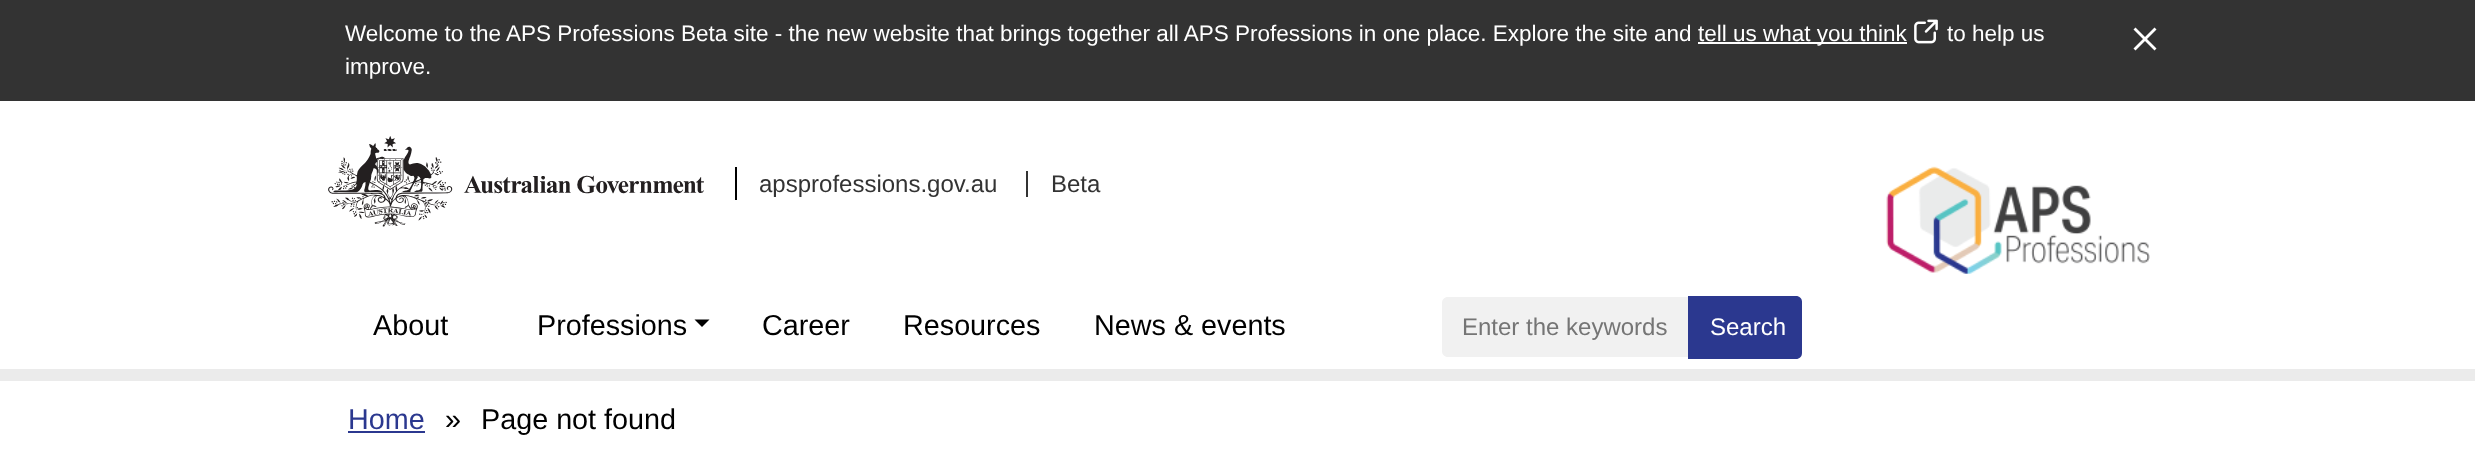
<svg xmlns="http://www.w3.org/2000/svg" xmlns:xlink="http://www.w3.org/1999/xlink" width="2475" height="450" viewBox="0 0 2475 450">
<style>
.cls-1{font:22.5px Liberation Sans;fill:#ffffff}
.cls-2{font:24px Liberation Sans;fill:#333333}
.cls-3{font:28.75px Liberation Sans;fill:#000000}
.cls-4{font:24px Liberation Sans;fill:#757575}
.cls-5{font:24px Liberation Sans;fill:#ffffff}
.cls-6{font:28.75px Liberation Sans;fill:#2b388f}
</style>
<rect width="100%" height="100%" fill="#333333"/>
<rect fill="#ffffff" x="1698" y="42" width="209" height="2"/>
<image xlink:href="image0.png" x="1914" y="19" width="24" height="25"/>
<path fill="#ffffff" d="M2154.5 27.5L2156.5 29.5L2135.5 50.5L2133.5 48.5Z"/>
<path fill="#ffffff" d="M2133.5 29.5L2135.5 27.5L2156.5 48.5L2154.5 50.5Z"/>
<rect fill="#ffffff" x="0" y="101" width="2475" height="268"/>
<rect fill="#ebebeb" x="0" y="369" width="2475" height="12"/>
<image xlink:href="image1.png" x="328" y="136" width="376" height="91"/>
<rect fill="#000000" x="735" y="167" width="2" height="33"/>
<rect fill="#333333" x="1026" y="171" width="2" height="26"/>
<image xlink:href="image2.png" x="1886" y="166" width="264" height="108"/>
<path fill="#000000" d="M694.5 319.5H709.5L702 327Z"/>
<path fill="#f1f1f1" d="M1448 297H1688V357H1448C1444.5 357 1442 354.5 1442 351V303C1442 299.5 1444.5 297 1448 297Z"/>
<path fill="#2b388f" d="M1688 296H1796C1799.5 296 1802 298.5 1802 302V353C1802 356.5 1799.5 359 1796 359H1688Z"/>
<rect fill="#ffffff" x="0" y="381" width="2475" height="69"/>
<rect fill="#2b388f" x="348" y="431" width="77" height="2"/>
<text class="cls-1" x="345" y="41">Welcome to the APS Professions Beta site - the new website that brings together all APS Professions in one place. Explore the site and</text>
<text class="cls-1" x="1698" y="41">tell us what you think</text>
<text class="cls-1" x="1947" y="41">to help us</text>
<text class="cls-1" x="345" y="74">improve.</text>
<text class="cls-2" x="759" y="192">apsprofessions.gov.au</text>
<text class="cls-2" x="1051" y="192">Beta</text>
<text class="cls-3" x="373" y="335">About</text>
<text class="cls-3" x="537" y="335">Professions</text>
<text class="cls-3" x="762" y="335">Career</text>
<text class="cls-3" x="903" y="335">Resources</text>
<text class="cls-3" x="1094" y="335">News &amp; events</text>
<text class="cls-4" x="1462" y="335">Enter the keywords</text>
<text class="cls-5" x="1710" y="335">Search</text>
<text class="cls-6" x="348" y="429">Home</text>
<text class="cls-3" x="445" y="429">»</text>
<text class="cls-3" x="481" y="429">Page not found</text>
</svg>
